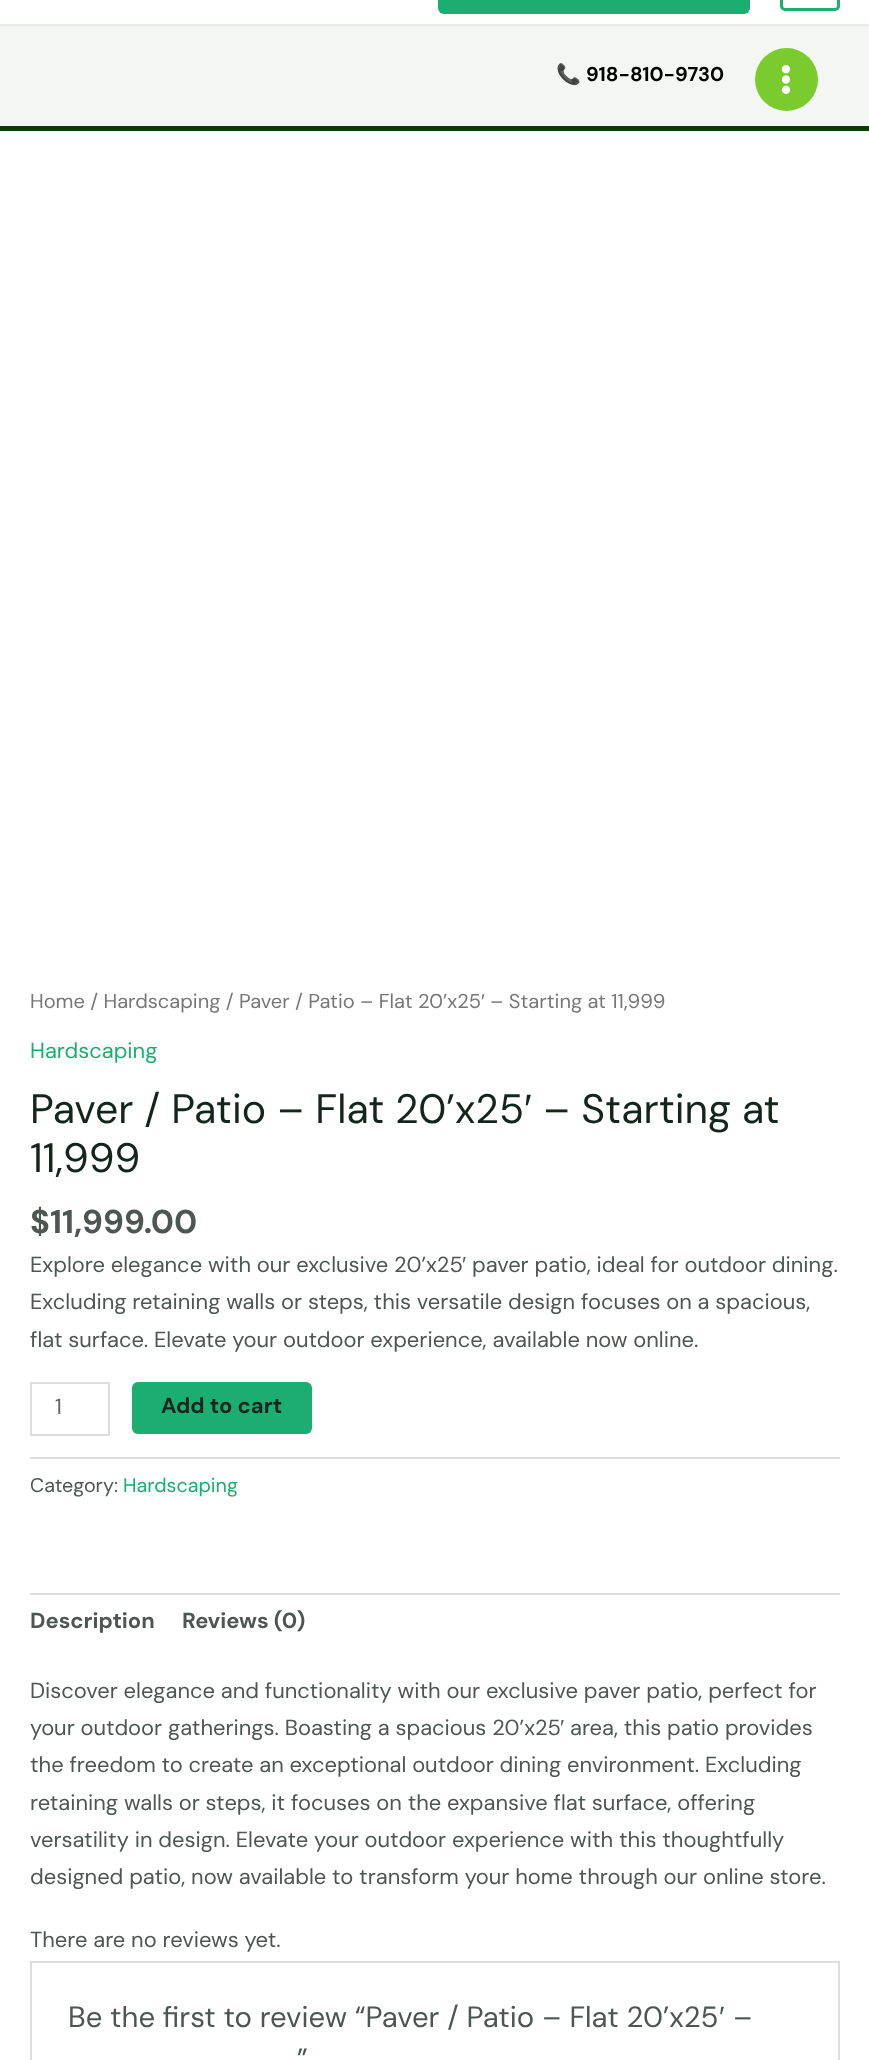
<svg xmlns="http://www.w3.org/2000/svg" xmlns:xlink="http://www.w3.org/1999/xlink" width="869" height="2060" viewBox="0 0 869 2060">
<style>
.cls-1{font:bold 20px Noto Color Emoji;fill:#000000}
.cls-2{font:bold 20px DM Sans;fill:#000000}
.cls-3{font:20.1px DM Sans;fill:#777777}
.cls-4{font:20.1px Liberation Sans;fill:#777777}
.cls-5{font:21.9px DM Sans;fill:#1bae70}
.cls-6{font:41px DM Sans;fill:#14261c}
.cls-7{font:41px Liberation Sans;fill:#14261c}
.cls-8{font:bold 33px DM Sans;fill:#4e5652}
.cls-9{font:21.9px DM Sans;fill:#4e5652}
.cls-10{font:21.9px Liberation Sans;fill:#4e5652}
.cls-11{font:21.9px DM Sans;fill:#666666}
.cls-12{font:bold 21.9px DM Sans;fill:#14261c}
.cls-13{font:19.75px DM Sans;fill:#4e5652}
.cls-14{font:19.75px DM Sans;fill:#1bae70}
.cls-15{font:bold 21.9px DM Sans;fill:#4e5652}
.cls-16{font:29.3px DM Sans;fill:#4e5652}
.cls-17{font:29.3px Liberation Sans;fill:#4e5652}
</style>
<rect width="100%" height="100%" fill="#ffffff"/>
<rect fill="#eaeaea" x="0" y="24" width="869" height="2"/>
<rect fill="#1bae70" x="438" y="-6" width="312" height="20" rx="6"/>
<rect fill="none" stroke="#1bae70" stroke-width="3" x="781.5" y="-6.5" width="57" height="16" rx="3.5"/>
<rect fill="#f4f6f4" x="0" y="26" width="869" height="100"/>
<rect fill="#0d3c00" x="0" y="126" width="869" height="5"/>
<circle fill="#7acc2e" cx="786.5" cy="79.5" r="31.5"/>
<image xlink:href="image0.png" x="781" y="65" width="10" height="29"/>
<rect fill="none" stroke="#dddddd" stroke-width="2" x="31" y="1383" width="78" height="52"/>
<rect fill="#1bae70" x="132" y="1382" width="180" height="52" rx="6"/>
<rect fill="#dddddd" x="30" y="1457" width="810" height="2"/>
<rect fill="#dddddd" x="30" y="1593" width="810" height="2"/>
<rect fill="none" stroke="#dddddd" stroke-width="2" x="31" y="1962" width="808" height="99"/>
<text class="cls-1" x="556" y="81">📞</text>
<text class="cls-2" x="586" y="81">918-810-9730</text>
<text class="cls-3" x="30" y="1008">Home / Hardscaping / Paver / Patio – Flat 20’x25</text>
<text class="cls-4" x="481" y="1008">′</text>
<text class="cls-3" x="490" y="1008">– Starting at 11,999</text>
<text class="cls-5" x="30" y="1058">Hardscaping</text>
<text class="cls-6" x="30" y="1123">Paver / Patio – Flat 20’x25</text>
<text class="cls-7" x="524" y="1123">′</text>
<text class="cls-6" x="543" y="1123">– Starting at</text>
<text class="cls-6" x="30" y="1172">11,999</text>
<text class="cls-8" x="30" y="1233">$11,999.00</text>
<text class="cls-9" x="30" y="1272">Explore elegance with our exclusive 20’x25</text>
<text class="cls-10" x="462" y="1272">′</text>
<text class="cls-9" x="472" y="1272">paver patio, ideal for outdoor dining.</text>
<text class="cls-9"><tspan x="30" y="1309">Excluding retaining walls or steps, this versatile design focuses on a spacious,</tspan><tspan x="30" y="1347">flat surface. Elevate your outdoor experience, available now online.</tspan></text>
<text class="cls-11" x="55" y="1414">1</text>
<text class="cls-12" x="161" y="1413">Add to cart</text>
<text class="cls-13" x="30" y="1492">Category:</text>
<text class="cls-14" x="123" y="1492">Hardscaping</text>
<text class="cls-15" x="30" y="1628">Description</text>
<text class="cls-15" x="182" y="1628">Reviews (0)</text>
<text class="cls-9"><tspan x="30" y="1698">Discover elegance and functionality with our exclusive paver patio, perfect for</tspan><tspan x="30" y="1735">your outdoor gatherings. Boasting a spacious 20’x25</tspan></text>
<text class="cls-10" x="560" y="1735">′</text>
<text class="cls-9" x="570" y="1735">area, this patio provides</text>
<text class="cls-9"><tspan x="30" y="1772">the freedom to create an exceptional outdoor dining environment. Excluding</tspan><tspan x="30" y="1810">retaining walls or steps, it focuses on the expansive flat surface, offering</tspan><tspan x="30" y="1847">versatility in design. Elevate your outdoor experience with this thoughtfully</tspan><tspan x="30" y="1884">designed patio, now available to transform your home through our online store.</tspan></text>
<text class="cls-9" x="30" y="1947">There are no reviews yet.</text>
<text class="cls-16" x="68" y="2027">Be the first to review “Paver / Patio – Flat 20’x25</text>
<text class="cls-17" x="719" y="2027">′</text>
<text class="cls-16" x="733" y="2027">–</text>
<text class="cls-16" x="297" y="2069">”</text>
</svg>
